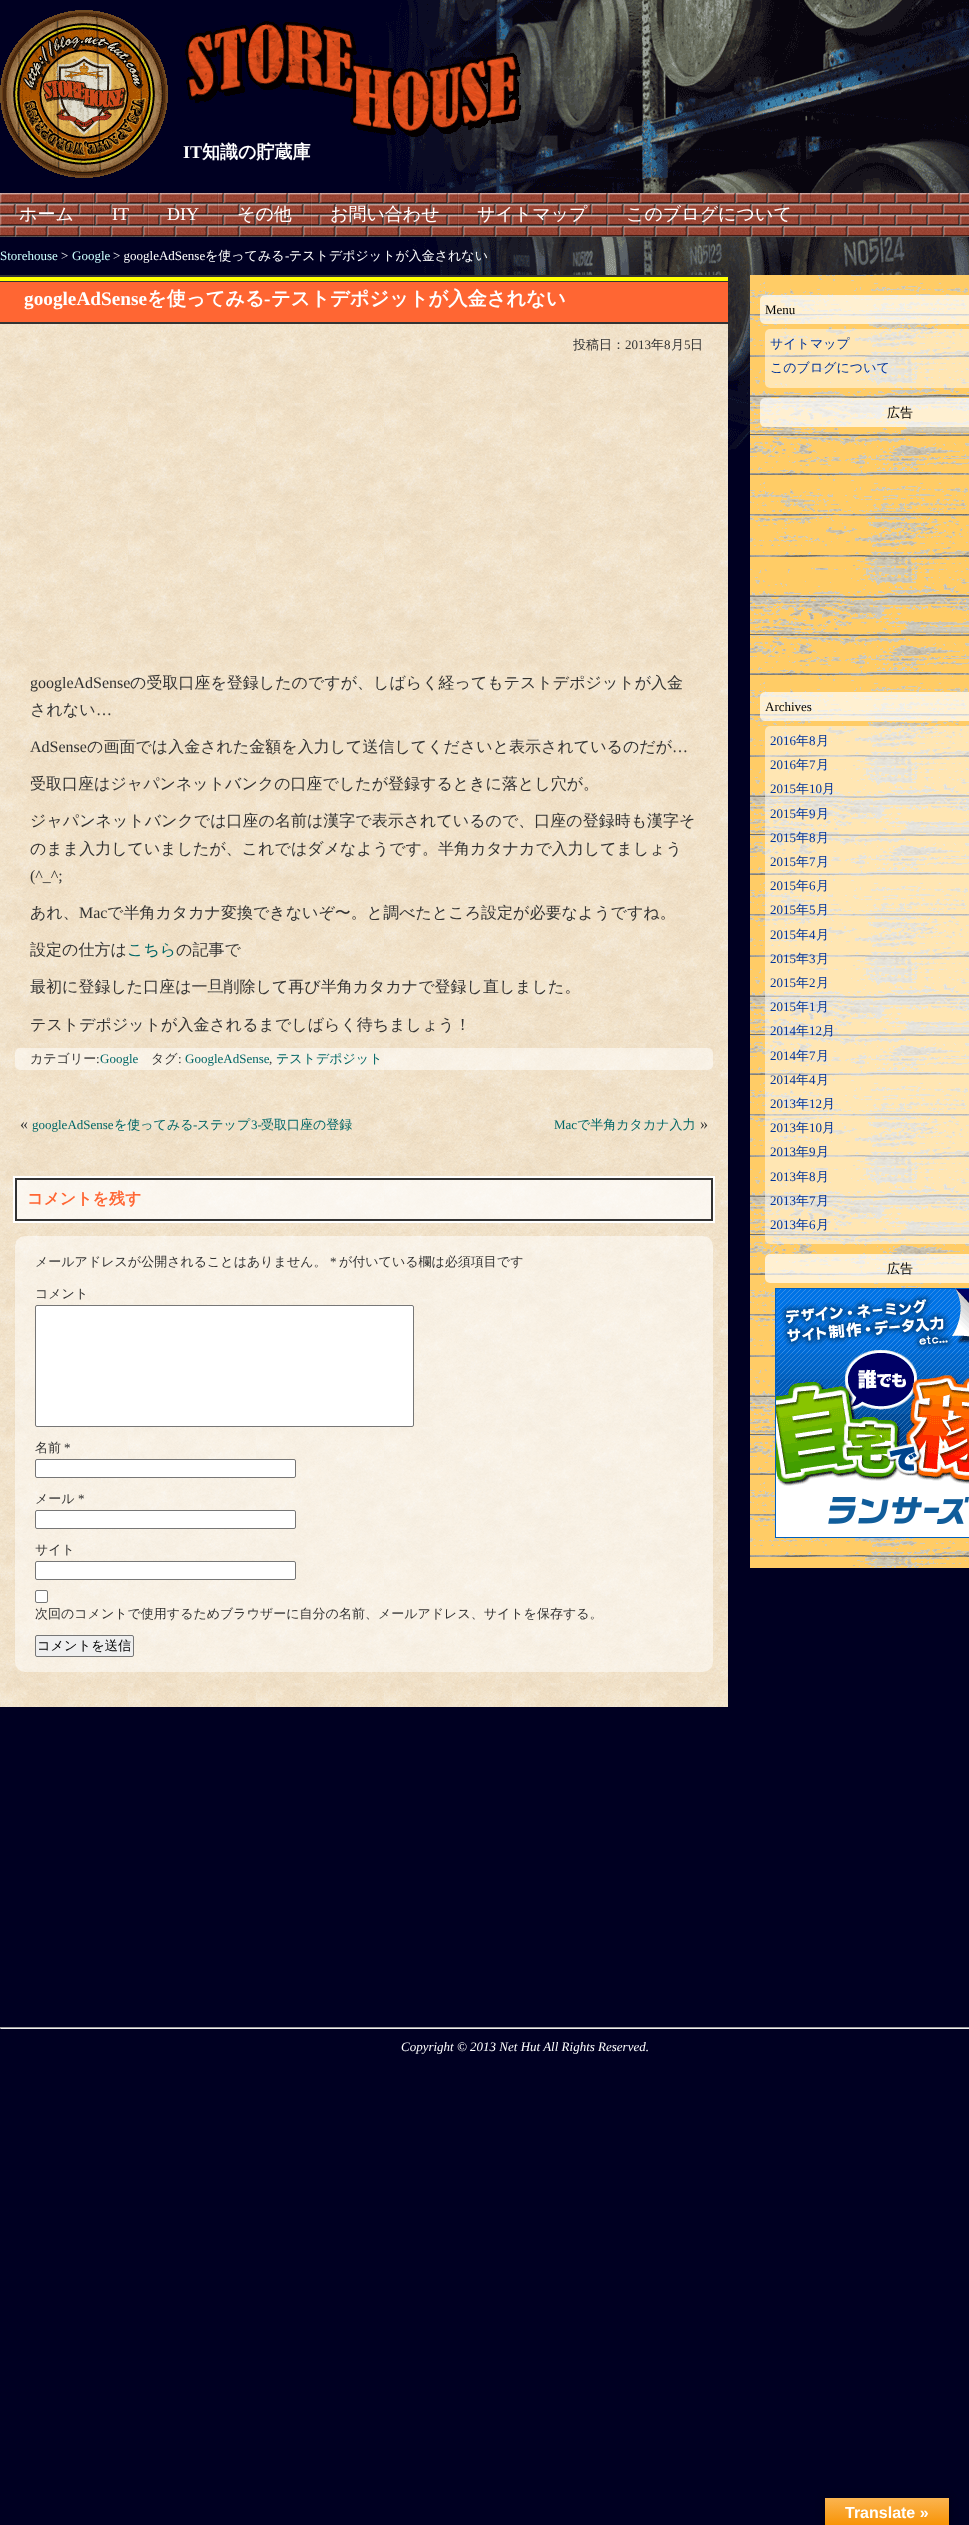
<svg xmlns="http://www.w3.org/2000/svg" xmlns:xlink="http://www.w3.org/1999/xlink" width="969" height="2525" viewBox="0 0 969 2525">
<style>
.cls-1{font:bold 18px Liberation Serif;fill:#ffffff}
.cls-2{font:bold 18px WenQuanYi Zen Hei;fill:#ffffff}
.cls-3{font:500 18px WenQuanYi Zen Hei;fill:#ffffff}
.cls-4{font:18px Liberation Serif;fill:#ffffff}
.cls-5{font:13px Liberation Serif;fill:#ccffff}
.cls-6{font:13px Liberation Serif;fill:#ffffff}
.cls-7{font:500 13px WenQuanYi Zen Hei;fill:#ffffff}
.cls-8{font:bold 19.25px Liberation Serif;fill:#ffffff}
.cls-9{font:bold 19.25px WenQuanYi Zen Hei;fill:#ffffff}
.cls-10{font:500 13px WenQuanYi Zen Hei;fill:#333333}
.cls-11{font:13px Liberation Serif;fill:#333333}
.cls-12{font:16px Liberation Serif;fill:#333333}
.cls-13{font:500 16px WenQuanYi Zen Hei;fill:#333333}
.cls-14{font:500 16px WenQuanYi Zen Hei;fill:#006666}
.cls-15{font:13px Liberation Serif;fill:#006666}
.cls-16{font:500 13px WenQuanYi Zen Hei;fill:#006666}
.cls-17{font:bold 16px WenQuanYi Zen Hei;fill:#ff6633}
.cls-18{font:500 13.25px WenQuanYi Zen Hei;fill:#000000}
.cls-19{font:13px Liberation Serif;fill:#000000}
.cls-20{font:500 13px WenQuanYi Zen Hei;fill:#003399}
.cls-21{font:500 13px WenQuanYi Zen Hei;fill:#000000}
.cls-22{font:13px Liberation Serif;fill:#003399}
.cls-23{font:italic 13px Liberation Serif;fill:#ffffff}
.cls-24{font:bold 16px Liberation Sans;fill:#ffffff}
</style>
<defs>
<linearGradient id="g1" gradientUnits="userSpaceOnUse" x1="364" y1="277" x2="364" y2="322"><stop offset="0" stop-color="#ffff00"/><stop offset="0.08" stop-color="#ffff00"/><stop offset="0.08" stop-color="#333333"/><stop offset="0.12" stop-color="#333333"/><stop offset="0.12" stop-color="#ff6633"/><stop offset="1" stop-color="#ff6633"/></linearGradient>
<linearGradient id="g2" gradientUnits="userSpaceOnUse" x1="887" y1="2498" x2="887" y2="2525"><stop offset="0" stop-color="#fbb450"/><stop offset="1" stop-color="#f89406"/></linearGradient>
</defs>
<rect width="100%" height="100%" fill="#000022"/>
<image xlink:href="image0.png" x="366" y="0" width="603" height="456"/>
<image xlink:href="image1.png" x="0" y="10" width="168" height="168"/>
<image xlink:href="image2.png" x="185" y="21" width="336" height="116"/>
<image xlink:href="image3.png" x="0" y="193" width="969" height="44"/>
<rect fill="#000000" fill-opacity="0.1" x="92" y="193" width="1" height="42"/>
<rect fill="#ffffff" fill-opacity="0.1" x="0" y="193" width="1" height="42"/>
<rect fill="#000000" fill-opacity="0.1" x="147" y="193" width="1" height="42"/>
<rect fill="#ffffff" fill-opacity="0.1" x="93" y="193" width="1" height="42"/>
<rect fill="#000000" fill-opacity="0.1" x="217" y="193" width="1" height="42"/>
<rect fill="#ffffff" fill-opacity="0.1" x="148" y="193" width="1" height="42"/>
<rect fill="#000000" fill-opacity="0.1" x="310" y="193" width="1" height="42"/>
<rect fill="#ffffff" fill-opacity="0.1" x="218" y="193" width="1" height="42"/>
<rect fill="#000000" fill-opacity="0.1" x="457" y="193" width="1" height="42"/>
<rect fill="#ffffff" fill-opacity="0.1" x="311" y="193" width="1" height="42"/>
<rect fill="#000000" fill-opacity="0.1" x="606" y="193" width="1" height="42"/>
<rect fill="#ffffff" fill-opacity="0.1" x="458" y="193" width="1" height="42"/>
<rect fill="#000000" fill-opacity="0.1" x="810" y="193" width="1" height="42"/>
<rect fill="#ffffff" fill-opacity="0.1" x="607" y="193" width="1" height="42"/>
<image xlink:href="image4.png" x="0" y="324" width="728" height="1383"/>
<rect fill="url(#g1)" x="0" y="277" width="728" height="45"/>
<rect fill="#333333" x="0" y="275" width="728" height="2"/>
<rect fill="#333333" x="0" y="322" width="728" height="2"/>
<rect fill="#ffffff" fill-opacity="0.5" x="15" y="1048" width="698" height="22" rx="5"/>
<rect fill="#ffffff" fill-opacity="0.7" stroke="#333333" stroke-width="2" x="16" y="1179" width="696" height="41"/>
<rect fill="none" stroke="#ffffff" stroke-width="2" x="14" y="1177" width="700" height="45"/>
<rect fill="#ffffff" fill-opacity="0.5" x="15" y="1236" width="698" height="436" rx="10"/>
<rect fill="#ffffff" stroke="#767676" x="35.5" y="1305.5" width="378" height="121" rx="1.5"/>
<rect fill="#ffffff" stroke="#767676" x="35.5" y="1459.5" width="260" height="18" rx="1.5"/>
<rect fill="#ffffff" stroke="#767676" x="35.5" y="1510.5" width="260" height="18" rx="1.5"/>
<rect fill="#ffffff" stroke="#767676" x="35.5" y="1561.5" width="260" height="18" rx="1.5"/>
<rect fill="#ffffff" stroke="#767676" x="35.5" y="1590.5" width="12" height="12" rx="1.5"/>
<rect fill="#efefef" stroke="#767676" x="35.5" y="1635.5" width="98" height="21" rx="1.5"/>
<image xlink:href="image5.png" x="750" y="275" width="219" height="1293"/>
<rect fill="#ffffff" fill-opacity="0.7" x="760" y="295" width="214" height="29" rx="5"/>
<rect fill="#ffffff" fill-opacity="0.5" x="765" y="329" width="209" height="59" rx="5"/>
<rect fill="#ffffff" fill-opacity="0.7" x="760" y="398" width="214" height="29" rx="5"/>
<rect fill="#ffffff" fill-opacity="0.7" x="760" y="692" width="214" height="29" rx="5"/>
<rect fill="#ffffff" fill-opacity="0.5" x="765" y="726" width="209" height="518" rx="5"/>
<rect fill="#ffffff" fill-opacity="0.7" x="765" y="1254" width="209" height="29" rx="5"/>
<image xlink:href="image6.png" x="775" y="1288" width="194" height="250"/>
<rect fill="#9f9f9f" x="0" y="2027" width="969" height="1"/>
<rect fill="#eeeeee" x="0" y="2028" width="969" height="1"/>
<rect fill="#9f9f9f" x="0" y="2027" width="1" height="2"/>
<rect fill="#000000" fill-opacity="0.3" filter="blur(4.5px)" x="825" y="2498" width="124" height="27"/>
<rect fill="url(#g2)" x="825" y="2498" width="124" height="27"/>
<text class="cls-1" x="183" y="158">IT</text>
<text class="cls-2" x="202" y="158">知識の貯蔵庫</text>
<text class="cls-3" x="19" y="220">ホーム</text>
<text class="cls-4" x="112" y="220">IT</text>
<text class="cls-4" x="167" y="220">DIY</text>
<text class="cls-3" x="237" y="220">その他</text>
<text class="cls-3" x="330" y="220">お問い合わせ</text>
<text class="cls-3" x="477" y="220">サイトマップ</text>
<text class="cls-3" x="626" y="220">このブログについて</text>
<text class="cls-5" x="0" y="260">Storehouse</text>
<text class="cls-6" x="61" y="260">&gt;</text>
<text class="cls-5" x="72" y="260">Google</text>
<text class="cls-6" x="113" y="260">&gt; googleAdSense</text>
<text class="cls-7" x="205" y="260">を使ってみる</text>
<text class="cls-6" x="285" y="260">-</text>
<text class="cls-7" x="289" y="260">テストデポジットが入金されない</text>
<text class="cls-8" x="24" y="305">googleAdSense</text>
<text class="cls-9" x="147" y="305">を使ってみる</text>
<text class="cls-8" x="264" y="305">-</text>
<text class="cls-9" x="271" y="305">テストデポジットが入金されない</text>
<text class="cls-10" x="573" y="349">投稿日：</text>
<text class="cls-11" x="625" y="349">2013</text>
<text class="cls-10" x="651" y="349">年</text>
<text class="cls-11" x="664" y="349">8</text>
<text class="cls-10" x="671" y="349">月</text>
<text class="cls-11" x="684" y="349">5</text>
<text class="cls-10" x="690" y="349">日</text>
<text class="cls-12" x="30" y="688">googleAdSense</text>
<text class="cls-13" x="130" y="688">の受取口座を登録したのですが、しばらく経ってもテストデポジットが入金</text>
<text class="cls-13" x="30" y="715">されない</text>
<text class="cls-12" x="96" y="715">…</text>
<text class="cls-12" x="30" y="752">AdSense</text>
<text class="cls-13" x="87" y="752">の画面では入金された金額を入力して送信してくださいと表示されているのだが</text>
<text class="cls-12" x="672" y="752">…</text>
<text class="cls-13" x="30" y="789">受取口座はジャパンネットバンクの口座でしたが登録するときに落とし穴が。</text>
<text class="cls-13"><tspan x="30" y="826">ジャパンネットバンクでは口座の名前は漢字で表示されているので、口座の登録時も漢字そ</tspan><tspan x="30" y="854">のまま入力していましたが、これではダメなようです。半角カタナカで入力してましょう</tspan></text>
<text class="cls-12" x="30" y="881">(^_^;</text>
<text class="cls-13" x="30" y="918">あれ、</text>
<text class="cls-12" x="79" y="918">Mac</text>
<text class="cls-13" x="107" y="918">で半角カタカナ変換できないぞ〜。と調べたところ設定が必要なようですね。</text>
<text class="cls-13" x="30" y="955">設定の仕方は</text>
<text class="cls-14" x="127" y="955">こちら</text>
<text class="cls-13" x="176" y="955">の記事で</text>
<text class="cls-13" x="30" y="992">最初に登録した口座は一旦削除して再び半角カタカナで登録し直しました。</text>
<text class="cls-13" x="30" y="1030">テストデポジットが入金されるまでしばらく待ちましょう！</text>
<text class="cls-10" x="30" y="1063">カテゴリー</text>
<text class="cls-11" x="96" y="1063">:</text>
<text class="cls-15" x="100" y="1063">Google</text>
<text class="cls-10" x="151" y="1063">タグ</text>
<text class="cls-11" x="178" y="1063">:</text>
<text class="cls-15" x="185" y="1063">GoogleAdSense</text>
<text class="cls-11" x="269" y="1063">,</text>
<text class="cls-16" x="276" y="1063">テストデポジット</text>
<text class="cls-12" x="20" y="1129">«</text>
<text class="cls-15" x="32" y="1129">googleAdSense</text>
<text class="cls-16" x="114" y="1129">を使ってみる</text>
<text class="cls-15" x="193" y="1129">-</text>
<text class="cls-16" x="197" y="1129">ステップ</text>
<text class="cls-15" x="251" y="1129">3-</text>
<text class="cls-16" x="261" y="1129">受取口座の登録</text>
<text class="cls-15" x="554" y="1129">Mac</text>
<text class="cls-16" x="577" y="1129">で半角カタカナ入力</text>
<text class="cls-12" x="700" y="1129">»</text>
<text class="cls-17" x="27" y="1204">コメントを残す</text>
<text class="cls-10" x="35" y="1266">メールアドレスが公開されることはありません。</text>
<text class="cls-11" x="330" y="1266">*</text>
<text class="cls-10" x="339" y="1266">が付いている欄は必須項目です</text>
<text class="cls-10" x="35" y="1298">コメント</text>
<text class="cls-10" x="35" y="1452">名前</text>
<text class="cls-11" x="64" y="1452">*</text>
<text class="cls-10" x="35" y="1503">メール</text>
<text class="cls-11" x="78" y="1503">*</text>
<text class="cls-10" x="35" y="1554">サイト</text>
<text class="cls-10" x="35" y="1618">次回のコメントで使用するためブラウザーに自分の名前、メールアドレス、サイトを保存する。</text>
<text class="cls-18" x="37" y="1650">コメントを送信</text>
<text class="cls-19" x="765" y="314">Menu</text>
<text class="cls-20"><tspan x="770" y="348">サイトマップ</tspan><tspan x="770" y="372">このブログについて</tspan></text>
<text class="cls-21" x="887" y="417">広告</text>
<text class="cls-19" x="765" y="711">Archives</text>
<text class="cls-22" x="770" y="745">2016</text>
<text class="cls-20" x="796" y="745">年</text>
<text class="cls-22" x="809" y="745">8</text>
<text class="cls-20" x="816" y="745">月</text>
<text class="cls-22" x="770" y="769">2016</text>
<text class="cls-20" x="796" y="769">年</text>
<text class="cls-22" x="809" y="769">7</text>
<text class="cls-20" x="816" y="769">月</text>
<text class="cls-22" x="770" y="793">2015</text>
<text class="cls-20" x="796" y="793">年</text>
<text class="cls-22" x="809" y="793">10</text>
<text class="cls-20" x="822" y="793">月</text>
<text class="cls-22" x="770" y="818">2015</text>
<text class="cls-20" x="796" y="818">年</text>
<text class="cls-22" x="809" y="818">9</text>
<text class="cls-20" x="816" y="818">月</text>
<text class="cls-22" x="770" y="842">2015</text>
<text class="cls-20" x="796" y="842">年</text>
<text class="cls-22" x="809" y="842">8</text>
<text class="cls-20" x="816" y="842">月</text>
<text class="cls-22" x="770" y="866">2015</text>
<text class="cls-20" x="796" y="866">年</text>
<text class="cls-22" x="809" y="866">7</text>
<text class="cls-20" x="816" y="866">月</text>
<text class="cls-22" x="770" y="890">2015</text>
<text class="cls-20" x="796" y="890">年</text>
<text class="cls-22" x="809" y="890">6</text>
<text class="cls-20" x="816" y="890">月</text>
<text class="cls-22" x="770" y="914">2015</text>
<text class="cls-20" x="796" y="914">年</text>
<text class="cls-22" x="809" y="914">5</text>
<text class="cls-20" x="816" y="914">月</text>
<text class="cls-22" x="770" y="939">2015</text>
<text class="cls-20" x="796" y="939">年</text>
<text class="cls-22" x="809" y="939">4</text>
<text class="cls-20" x="816" y="939">月</text>
<text class="cls-22" x="770" y="963">2015</text>
<text class="cls-20" x="796" y="963">年</text>
<text class="cls-22" x="809" y="963">3</text>
<text class="cls-20" x="816" y="963">月</text>
<text class="cls-22" x="770" y="987">2015</text>
<text class="cls-20" x="796" y="987">年</text>
<text class="cls-22" x="809" y="987">2</text>
<text class="cls-20" x="816" y="987">月</text>
<text class="cls-22" x="770" y="1011">2015</text>
<text class="cls-20" x="796" y="1011">年</text>
<text class="cls-22" x="809" y="1011">1</text>
<text class="cls-20" x="816" y="1011">月</text>
<text class="cls-22" x="770" y="1035">2014</text>
<text class="cls-20" x="796" y="1035">年</text>
<text class="cls-22" x="809" y="1035">12</text>
<text class="cls-20" x="822" y="1035">月</text>
<text class="cls-22" x="770" y="1060">2014</text>
<text class="cls-20" x="796" y="1060">年</text>
<text class="cls-22" x="809" y="1060">7</text>
<text class="cls-20" x="816" y="1060">月</text>
<text class="cls-22" x="770" y="1084">2014</text>
<text class="cls-20" x="796" y="1084">年</text>
<text class="cls-22" x="809" y="1084">4</text>
<text class="cls-20" x="816" y="1084">月</text>
<text class="cls-22" x="770" y="1108">2013</text>
<text class="cls-20" x="796" y="1108">年</text>
<text class="cls-22" x="809" y="1108">12</text>
<text class="cls-20" x="822" y="1108">月</text>
<text class="cls-22" x="770" y="1132">2013</text>
<text class="cls-20" x="796" y="1132">年</text>
<text class="cls-22" x="809" y="1132">10</text>
<text class="cls-20" x="822" y="1132">月</text>
<text class="cls-22" x="770" y="1156">2013</text>
<text class="cls-20" x="796" y="1156">年</text>
<text class="cls-22" x="809" y="1156">9</text>
<text class="cls-20" x="816" y="1156">月</text>
<text class="cls-22" x="770" y="1181">2013</text>
<text class="cls-20" x="796" y="1181">年</text>
<text class="cls-22" x="809" y="1181">8</text>
<text class="cls-20" x="816" y="1181">月</text>
<text class="cls-22" x="770" y="1205">2013</text>
<text class="cls-20" x="796" y="1205">年</text>
<text class="cls-22" x="809" y="1205">7</text>
<text class="cls-20" x="816" y="1205">月</text>
<text class="cls-22" x="770" y="1229">2013</text>
<text class="cls-20" x="796" y="1229">年</text>
<text class="cls-22" x="809" y="1229">6</text>
<text class="cls-20" x="816" y="1229">月</text>
<text class="cls-21" x="887" y="1273">広告</text>
<text class="cls-23" x="401" y="2051">Copyright © 2013 Net Hut All Rights Reserved.</text>
<text class="cls-24" x="845" y="2518">Translate »</text>
</svg>
